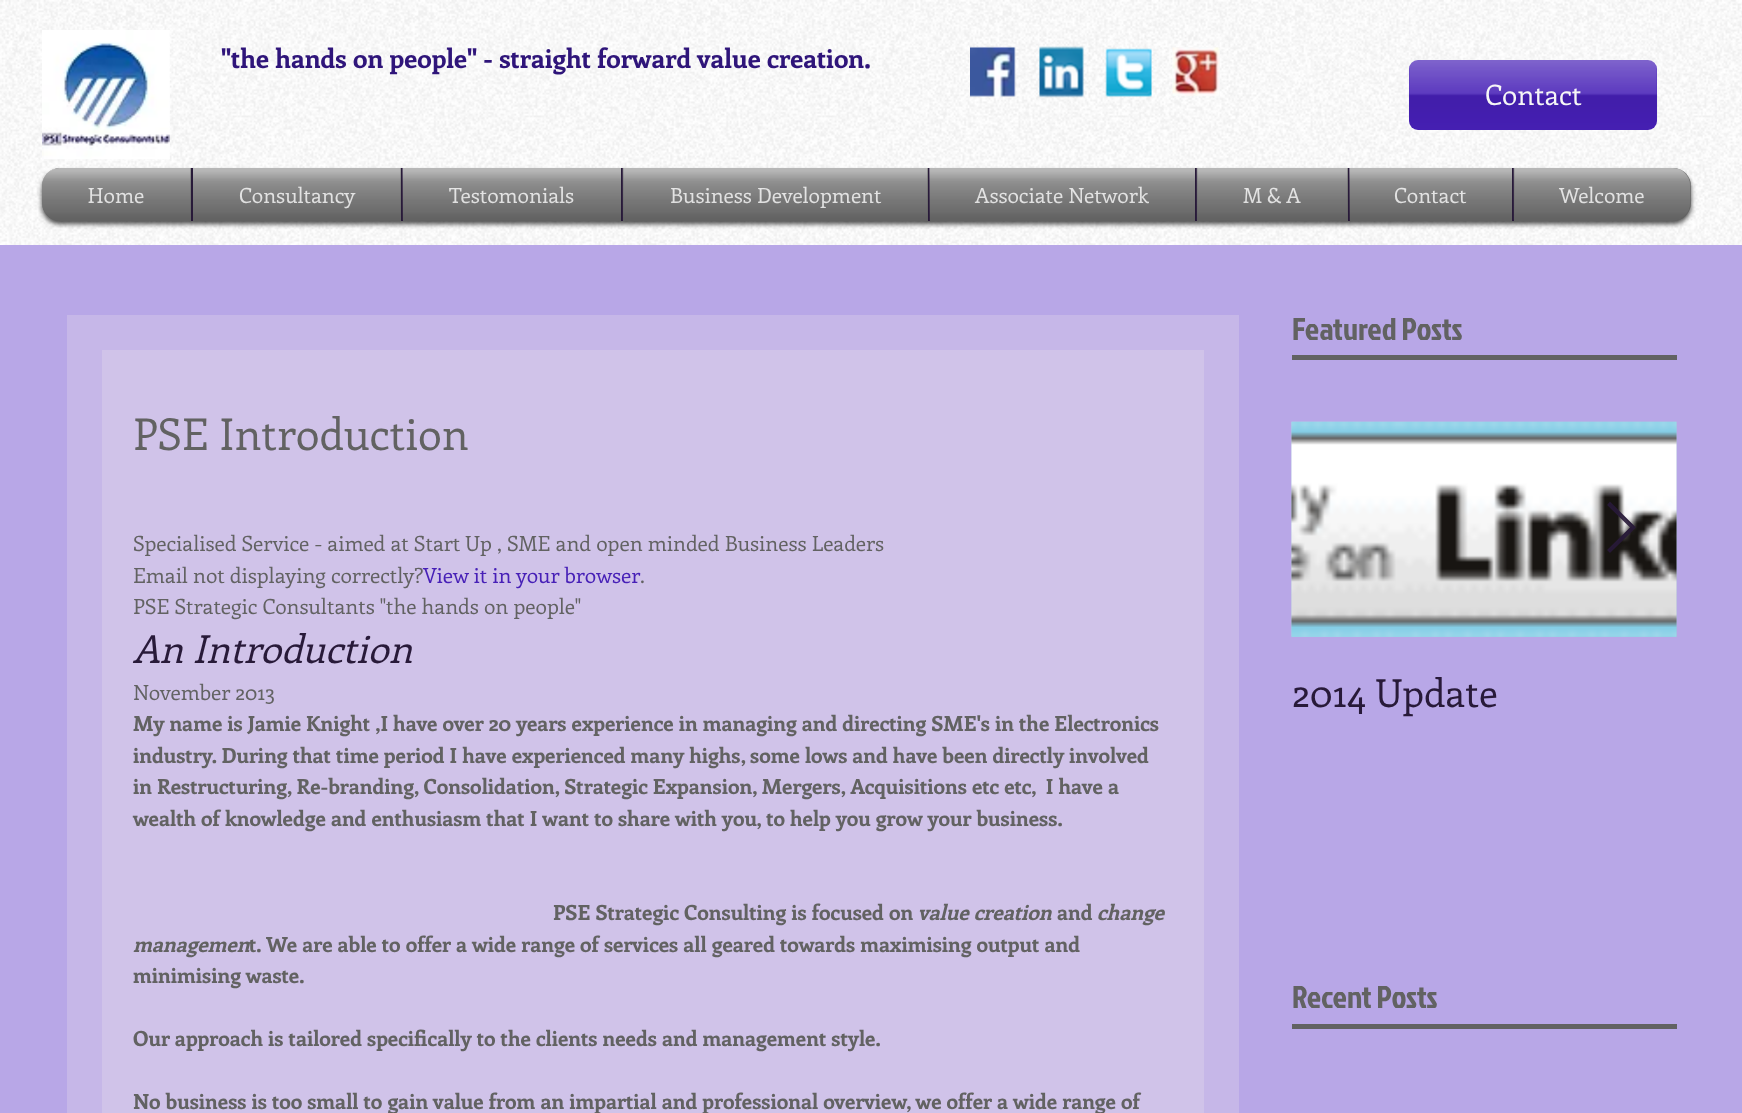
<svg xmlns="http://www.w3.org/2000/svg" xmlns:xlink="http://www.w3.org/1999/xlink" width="1742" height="1113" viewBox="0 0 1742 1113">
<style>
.cls-1{font:bold 26.25px Enriqueta;fill:#2f157a}
.cls-2{font:28px Enriqueta;fill:#f6f6f6}
.cls-3{font:21px Enriqueta;fill:#f6f6f6}
.cls-4{font:43.75px Enriqueta;fill:#626262}
.cls-5{font:21px Enriqueta;fill:#626262}
.cls-6{font:21px Enriqueta;fill:#4720b7}
.cls-7{font:italic 38.5px Enriqueta;fill:#281a39}
.cls-8{font:bold 21px Enriqueta;fill:#626262}
.cls-9{font:italic bold 21px Enriqueta;fill:#626262}
.cls-10{font:31.5px Jockey One;fill:#626262}
.cls-11{font:38.5px Enriqueta;fill:#281a39}
</style>
<rect width="100%" height="100%" fill="#b8a7e7"/>
<rect fill="#ffffff" x="0" y="0" width="1742" height="245"/>
<image xlink:href="image0.png" x="0" y="0" width="1742" height="245"/>
<image xlink:href="image1.png" x="42" y="30" width="128" height="130"/>
<rect fill="#f6f6f6" x="970" y="47" width="45" height="49"/>
<image xlink:href="image2.png" x="970" y="46" width="46" height="51"/>
<image xlink:href="image3.png" x="1039" y="46" width="45" height="52"/>
<image xlink:href="image4.png" x="1105" y="48" width="47" height="49"/>
<rect fill="#f6f6f6" x="1173" y="47" width="47" height="49"/>
<image xlink:href="image5.png" x="1172" y="47" width="48" height="49"/>
<rect fill="#4720b7" x="1409" y="60" width="248" height="70" rx="9"/>
<image xlink:href="image6.png" x="1408" y="60" width="250" height="70"/>
<rect fill="#000000" fill-opacity="0.7" filter="blur(2.5px)" x="42" y="172" width="1649" height="52" rx="18"/>
<image xlink:href="image7.png" x="42" y="168" width="1649" height="52"/>
<image xlink:href="image8.png" x="42" y="168" width="1633" height="52"/>
<path fill="#626262" d="M60 168H191V221H60C50 221 42 213 42 203V186C42 176 50 168 60 168Z"/>
<rect fill="#626262" x="193" y="168" width="208" height="53"/>
<rect fill="#281a39" x="191" y="168" width="2" height="53"/>
<rect fill="#626262" x="403" y="168" width="218" height="53"/>
<rect fill="#281a39" x="401" y="168" width="2" height="53"/>
<rect fill="#626262" x="623" y="168" width="305" height="53"/>
<rect fill="#281a39" x="621" y="168" width="2" height="53"/>
<rect fill="#626262" x="930" y="168" width="265" height="53"/>
<rect fill="#281a39" x="928" y="168" width="2" height="53"/>
<rect fill="#626262" x="1197" y="168" width="151" height="53"/>
<rect fill="#281a39" x="1195" y="168" width="2" height="53"/>
<rect fill="#626262" x="1350" y="168" width="162" height="53"/>
<rect fill="#281a39" x="1348" y="168" width="2" height="53"/>
<path fill="#626262" d="M1512 168H1673C1683 168 1691 176 1691 186V203C1691 213 1683 221 1673 221H1512Z"/>
<rect fill="#281a39" x="1512" y="168" width="2" height="53"/>
<rect fill="#c6b7e8" x="67" y="315" width="1172" height="798"/>
<rect fill="#d0c3e9" x="102" y="350" width="1102" height="763"/>
<rect fill="#626262" x="1292" y="355" width="385" height="5"/>
<image xlink:href="image25.png" x="1291" y="421" width="386" height="216"/>
<image xlink:href="image26.png" x="1291" y="421" width="386" height="216"/>
<path fill="#281a39" fill-opacity="0.9" d="M1608 505L1610 503L1635 527L1610 552L1608 550L1631 527Z"/>
<path fill="none" stroke="#281a39" stroke-opacity="0.9" stroke-width="1.4" d="M1608 505L1610 502.5L1635 527.5L1610 552L1608 550L1631 527.5Z"/>
<rect fill="#626262" x="1292" y="1024" width="385" height="5"/>
<text class="cls-1" x="221" y="68">"the hands on people" - straight forward value creation.</text>
<text class="cls-2" x="1485" y="105">Contact</text>
<text class="cls-3" x="88" y="203">Home</text>
<image xlink:href="image9.png" x="42" y="168" width="149" height="52"/>
<image xlink:href="image10.png" x="42" y="168" width="149" height="52"/>
<text class="cls-3" x="239" y="203">Consultancy</text>
<image xlink:href="image11.png" x="193" y="168" width="208" height="53"/>
<image xlink:href="image12.png" x="193" y="168" width="208" height="53"/>
<text class="cls-3" x="449" y="203">Testomonials</text>
<image xlink:href="image13.png" x="402" y="168" width="219" height="53"/>
<image xlink:href="image14.png" x="402" y="168" width="219" height="53"/>
<text class="cls-3" x="670" y="203">Business Development</text>
<image xlink:href="image15.png" x="622" y="168" width="306" height="53"/>
<image xlink:href="image16.png" x="623" y="168" width="305" height="53"/>
<text class="cls-3" x="975" y="203">Associate Network</text>
<image xlink:href="image17.png" x="929" y="168" width="266" height="53"/>
<image xlink:href="image18.png" x="929" y="168" width="266" height="53"/>
<text class="cls-3" x="1243" y="203">M &amp; A</text>
<image xlink:href="image19.png" x="1196" y="168" width="152" height="53"/>
<image xlink:href="image20.png" x="1197" y="168" width="151" height="53"/>
<text class="cls-3" x="1394" y="203">Contact</text>
<image xlink:href="image21.png" x="1349" y="168" width="163" height="53"/>
<image xlink:href="image22.png" x="1349" y="168" width="163" height="53"/>
<text class="cls-3" x="1559" y="203">Welcome</text>
<image xlink:href="image23.png" x="1513" y="168" width="178" height="52"/>
<image xlink:href="image24.png" x="1514" y="168" width="177" height="52"/>
<text class="cls-4" x="133" y="450">PSE Introduction</text>
<text class="cls-5"><tspan x="133" y="551">Specialised Service - aimed at Start Up , SME and open minded Business Leaders</tspan><tspan x="133" y="583">Email not displaying correctly?</tspan></text>
<text class="cls-6" x="423" y="583">View it in your browser</text>
<text class="cls-5" x="640" y="583">.</text>
<text class="cls-5" x="133" y="614">PSE Strategic Consultants "the hands on people"</text>
<text class="cls-7" x="133" y="663">An Introduction</text>
<text class="cls-5" x="133" y="700">November 2013</text>
<text class="cls-8" xml:space="preserve"><tspan x="133" y="731">My name is Jamie Knight ,I have over 20 years experience in managing and directing SME's in the Electronics</tspan><tspan x="133" y="763">industry. During that time period I have experienced many highs, some lows and have been directly involved</tspan><tspan x="133" y="794">in Restructuring, Re-branding, Consolidation, Strategic Expansion, Mergers, Acquisitions etc etc,  I have a</tspan><tspan x="133" y="826">wealth of knowledge and enthusiasm that I want to share with you, to help you grow your business.</tspan></text>
<text class="cls-8" x="553" y="920">PSE Strategic Consulting is focused on</text>
<text class="cls-9" x="918" y="920">value creation</text>
<text class="cls-8" x="1057" y="920">and</text>
<text class="cls-9" x="1097" y="920">change</text>
<text class="cls-9" x="133" y="952">managemen</text>
<text class="cls-8" x="249" y="952">t. We are able to offer a wide range of services all geared towards maximising output and</text>
<text class="cls-8" x="133" y="983">minimising waste.</text>
<text class="cls-8" x="133" y="1046">Our approach is tailored specifically to the clients needs and management style.</text>
<text class="cls-8" x="133" y="1109">No business is too small to gain value from an impartial and professional overview, we offer a wide range of</text>
<text class="cls-10" x="1292" y="340">Featured Posts</text>
<text class="cls-11" x="1292" y="707">2014 Update</text>
<text class="cls-10" x="1292" y="1008">Recent Posts</text>
</svg>
